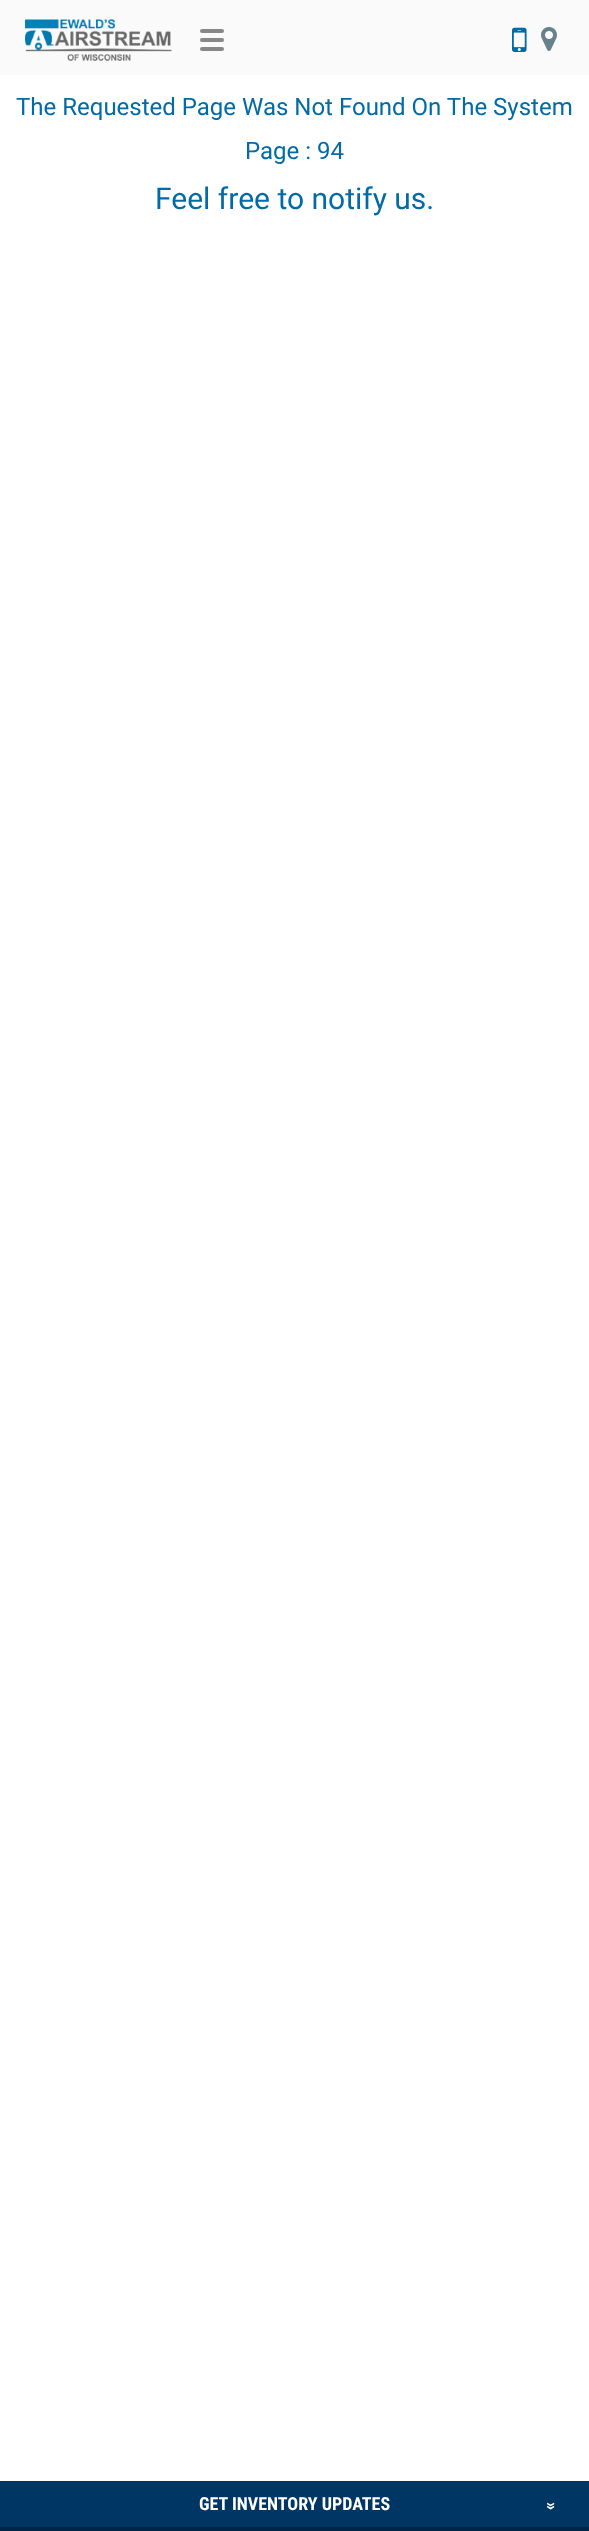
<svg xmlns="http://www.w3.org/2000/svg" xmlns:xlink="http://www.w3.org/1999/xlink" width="589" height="2531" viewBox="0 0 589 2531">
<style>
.cls-1{font:24px Roboto;fill:#006ba6}
.cls-2{font:30px Roboto;fill:#006ba6}
.cls-3{font:bold 18px Roboto Condensed;fill:#ffffff}
</style>
<rect width="100%" height="100%" fill="#ffffff"/>
<rect fill="#fafafa" x="0" y="0" width="589" height="75"/>
<image xlink:href="image0.png" x="25" y="19" width="147" height="42"/>
<rect fill="#878787" x="200" y="38" width="24" height="4" rx="2"/>
<rect fill="#878787" x="200" y="29" width="24" height="4" rx="2"/>
<rect fill="#878787" x="200" y="47" width="24" height="4" rx="2"/>
<image xlink:href="image1.png" x="512" y="27" width="15" height="25"/>
<image xlink:href="image2.png" x="541" y="27" width="16" height="24"/>
<rect fill="#003664" x="0" y="2481" width="589" height="46"/>
<rect fill="#002546" x="0" y="2527" width="589" height="4"/>
<text class="cls-1" x="16" y="115">The Requested Page Was Not Found On The System</text>
<text class="cls-1" x="245" y="159">Page : 94</text>
<text class="cls-2" x="155" y="209">Feel free to notify us.</text>
<text class="cls-3" x="199" y="2510">GET INVENTORY UPDATES</text>
<text class="cls-3" x="546" y="2502" transform="rotate(90 546 2502)">»</text>
</svg>
